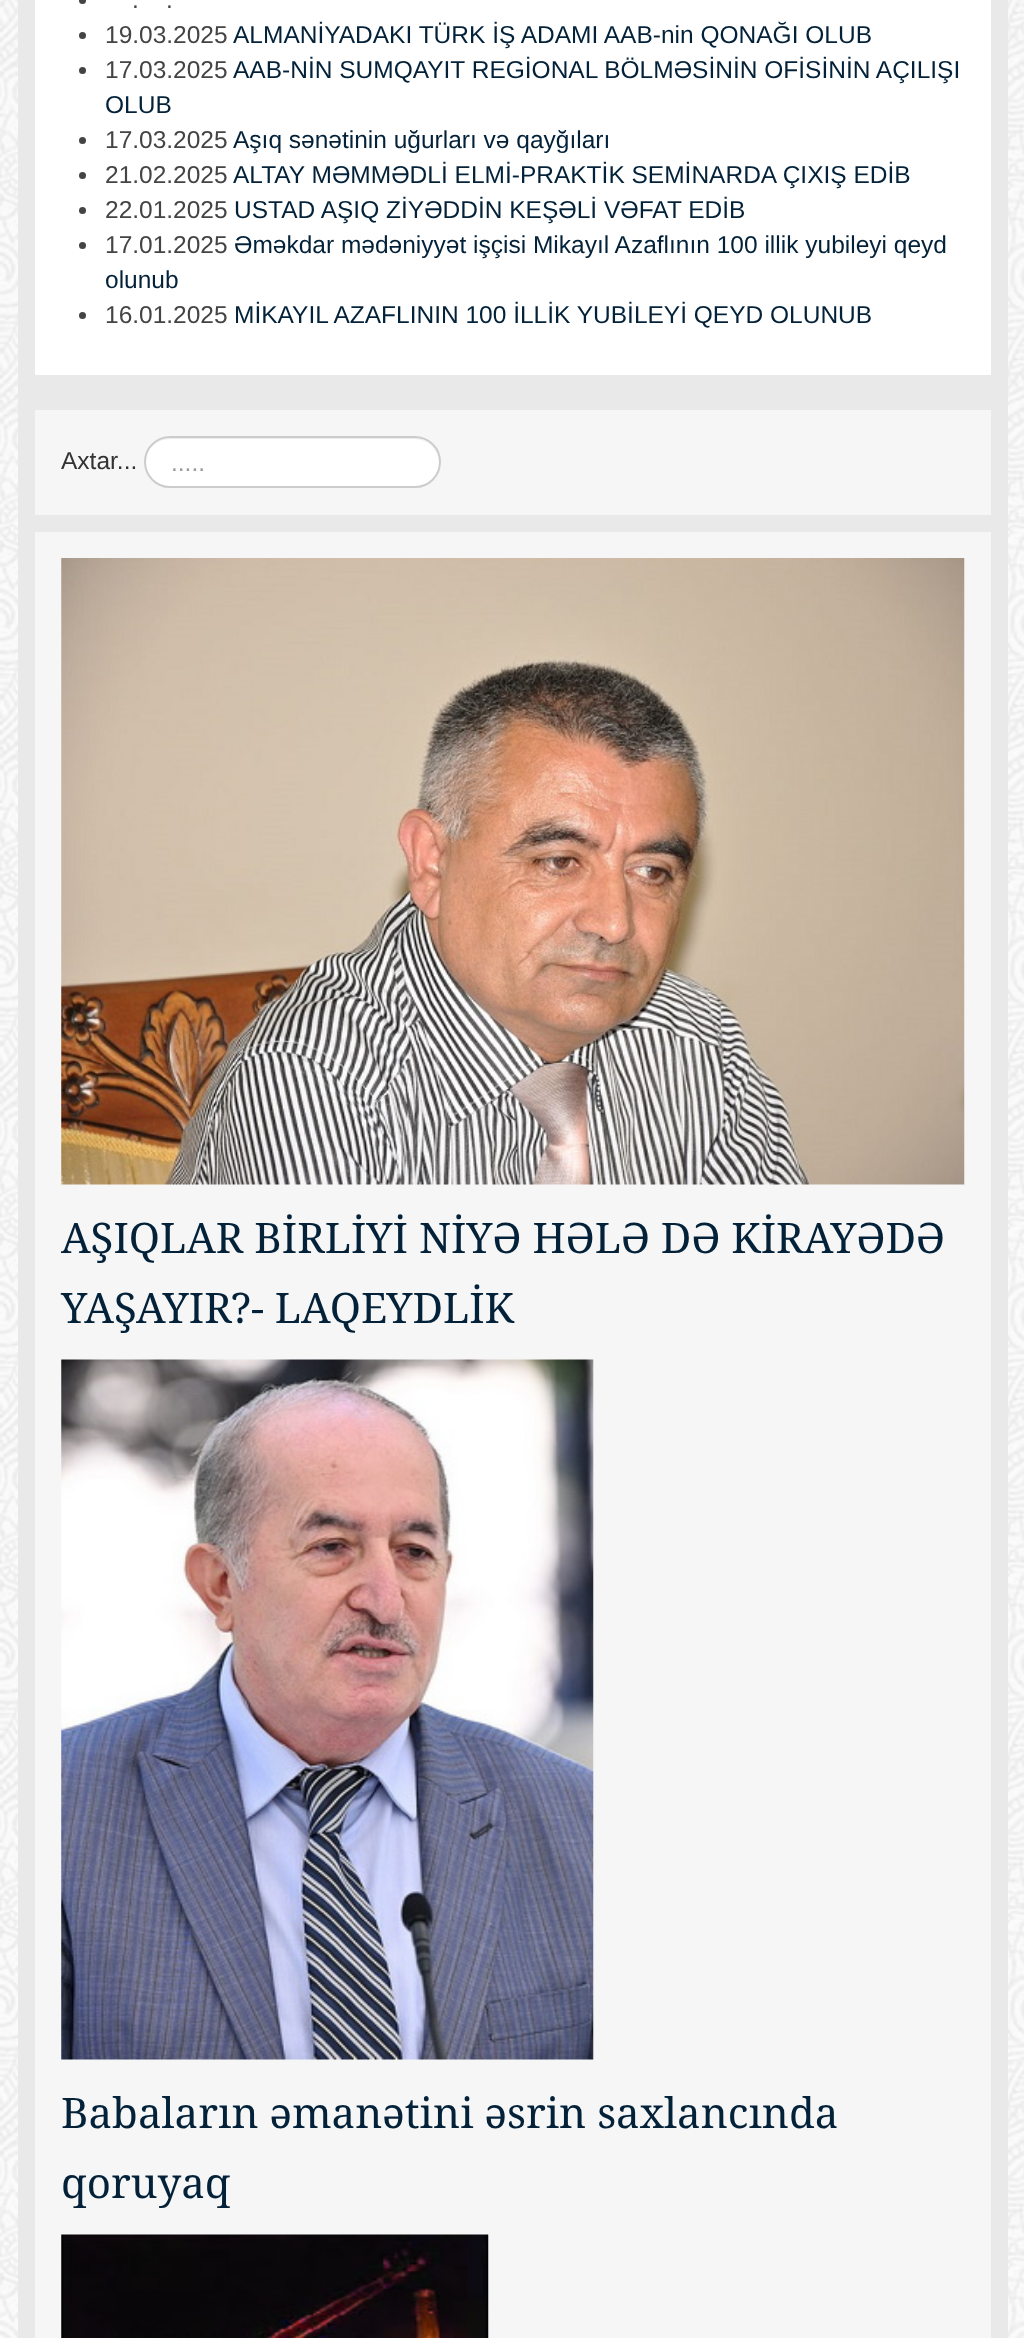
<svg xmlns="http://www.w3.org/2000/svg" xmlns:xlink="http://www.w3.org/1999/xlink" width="1024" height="2338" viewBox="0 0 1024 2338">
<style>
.cls-1{font:24.5px Liberation Sans;fill:#444444}
.cls-2{font:24.5px Liberation Sans;fill:#032239}
.cls-3{font:24.5px Liberation Sans;fill:#333333}
.cls-4{font:24.5px Liberation Sans;fill:#999999}
.cls-5{font:42px Noto Serif;fill:#032239}
</style>
<rect width="100%" height="100%" fill="#ffffff"/>
<image xlink:href="image0.png" x="0" y="0" width="1024" height="2338"/>
<rect fill="#e9e9e9" x="18" y="0" width="990" height="2338"/>
<rect fill="#ffffff" x="35" y="0" width="956" height="375"/>
<circle fill="#444444" cx="82.5" cy="0.5" r="3.5"/>
<circle fill="#444444" cx="82.5" cy="35.5" r="3.5"/>
<circle fill="#444444" cx="82.5" cy="70.5" r="3.5"/>
<circle fill="#444444" cx="82.5" cy="140.5" r="3.5"/>
<circle fill="#444444" cx="82.5" cy="175.5" r="3.5"/>
<circle fill="#444444" cx="82.5" cy="210.5" r="3.5"/>
<circle fill="#444444" cx="82.5" cy="245.5" r="3.5"/>
<circle fill="#444444" cx="82.5" cy="315.5" r="3.5"/>
<rect fill="#f6f6f6" x="35" y="410" width="956" height="105"/>
<rect fill="#ffffff" x="144" y="436" width="297" height="52" rx="26"/>
<path fill="#ececec" d="M170 439H415C428 439 439 450 439 463V462C439 449 428 438 414 438H170C156 438 145 449 145 462V463C145 450 156 439 170 439Z"/>
<rect fill="none" stroke="#cccccc" stroke-width="2" x="145" y="437" width="295" height="50" rx="25"/>
<rect fill="#f6f6f6" x="35" y="532" width="956" height="1806"/>
<image xlink:href="image1.png" x="61" y="558" width="904" height="627"/>
<image xlink:href="image2.png" x="61" y="1359" width="533" height="701"/>
<image xlink:href="image3.png" x="61" y="2234" width="428" height="104"/>
<text class="cls-1" x="132" y="8">.</text>
<text class="cls-1" x="166" y="8">.</text>
<text class="cls-1" x="105" y="43">19.03.2025</text>
<text class="cls-2" x="233" y="43">ALMANİYADAKI TÜRK İŞ ADAMI AAB-nin QONAĞI OLUB</text>
<text class="cls-1" x="105" y="78">17.03.2025</text>
<text class="cls-2" x="233" y="78">AAB-NİN SUMQAYIT REGİONAL BÖLMƏSİNİN OFİSİNİN AÇILIŞI</text>
<text class="cls-2" x="105" y="113">OLUB</text>
<text class="cls-1" x="105" y="148">17.03.2025</text>
<text class="cls-2" x="233" y="148">Aşıq sənətinin uğurları və qayğıları</text>
<text class="cls-1" x="105" y="183">21.02.2025</text>
<text class="cls-2" x="233" y="183">ALTAY MƏMMƏDLİ ELMİ-PRAKTİK SEMİNARDA ÇIXIŞ EDİB</text>
<text class="cls-1" x="105" y="218">22.01.2025</text>
<text class="cls-2" x="234" y="218">USTAD AŞIQ ZİYƏDDİN KEŞƏLİ VƏFAT EDİB</text>
<text class="cls-1" x="105" y="253">17.01.2025</text>
<text class="cls-2" x="234" y="253">Əməkdar mədəniyyət işçisi Mikayıl Azaflının 100 illik yubileyi qeyd</text>
<text class="cls-2" x="105" y="288">olunub</text>
<text class="cls-1" x="105" y="323">16.01.2025</text>
<text class="cls-2" x="234" y="323">MİKAYIL AZAFLININ 100 İLLİK YUBİLEYİ QEYD OLUNUB</text>
<text class="cls-3" x="61" y="469">Axtar...</text>
<text class="cls-4" x="171" y="471">.....</text>
<text class="cls-5"><tspan x="61" y="1253">AŞIQLAR BİRLİYİ NİYƏ HƏLƏ DƏ KİRAYƏDƏ</tspan><tspan x="61" y="1323">YAŞAYIR?- LAQEYDLİK</tspan></text>
<text class="cls-5"><tspan x="61" y="2128">Babaların əmanətini əsrin saxlancında</tspan><tspan x="61" y="2198">qoruyaq</tspan></text>
</svg>
